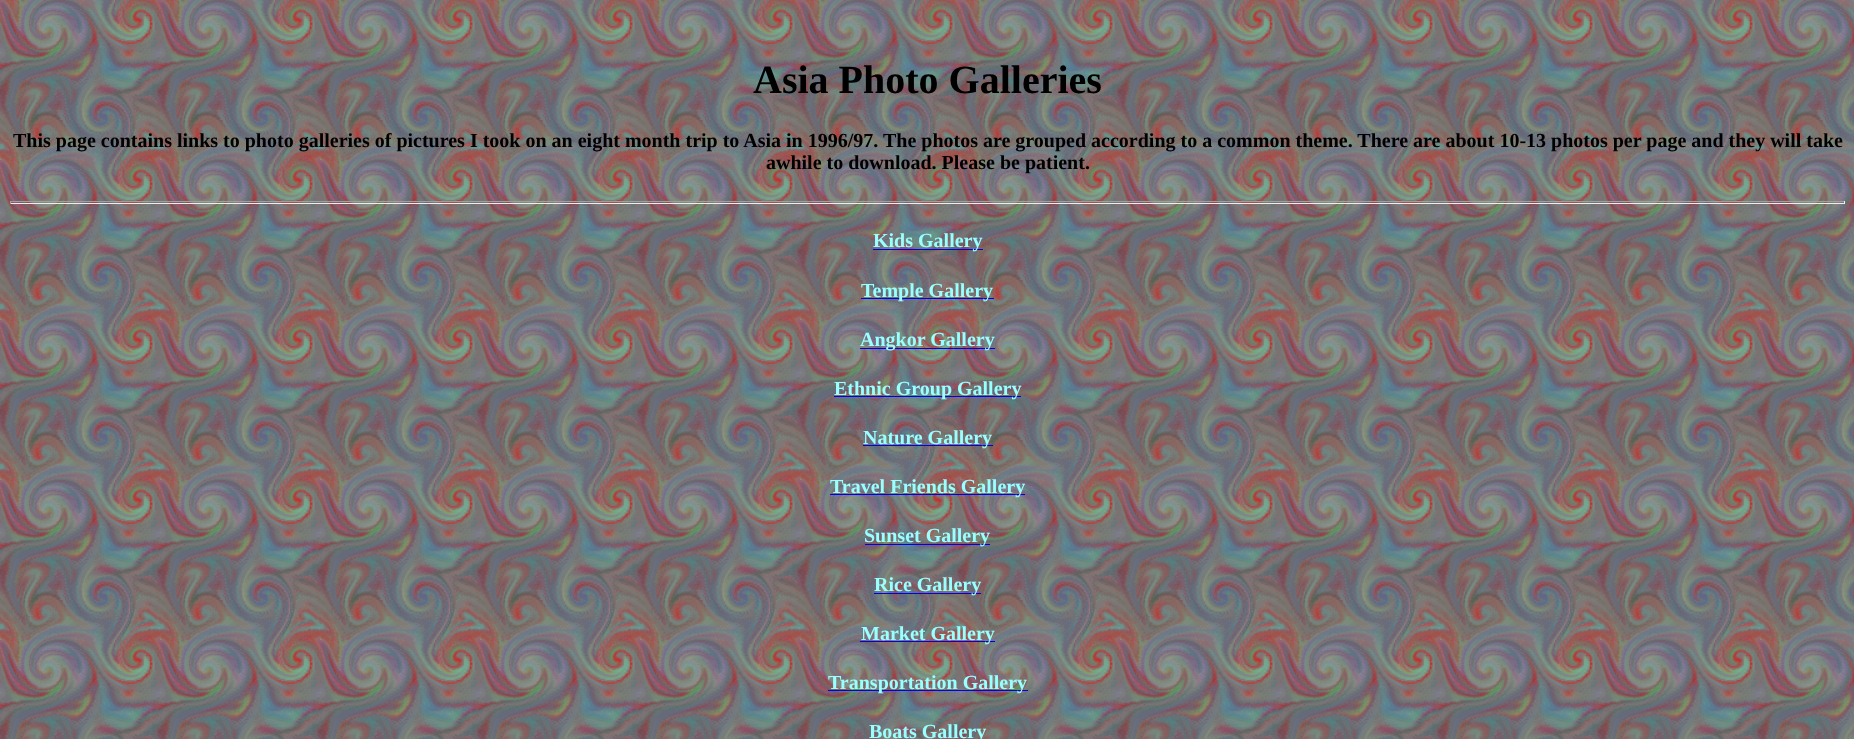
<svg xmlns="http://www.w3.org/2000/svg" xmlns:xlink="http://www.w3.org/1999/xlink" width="1854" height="739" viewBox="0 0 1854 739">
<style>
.cls-1{font:bold 40px Liberation Serif;fill:#000000}
.cls-2{font:bold 20px Liberation Serif;fill:#000000}
.cls-3{font:bold 20px Liberation Serif;fill:#99ffff}
</style>
<rect width="100%" height="100%" fill="#ffffff"/>
<image xlink:href="image0.png" x="0" y="0" width="1854" height="739"/>
<rect fill="#9f9f9f" x="10" y="201" width="1835" height="1"/>
<rect fill="#eeeeee" x="1844" y="201" width="1" height="3"/>
<rect fill="#eeeeee" x="10" y="203" width="1835" height="1"/>
<rect fill="#9f9f9f" x="10" y="201" width="1" height="3"/>
<rect fill="#0000ee" x="873" y="249" width="110" height="1"/>
<rect fill="#0000ee" x="861" y="298" width="133" height="1"/>
<rect fill="#0000ee" x="860" y="348" width="135" height="1"/>
<rect fill="#0000ee" x="834" y="396" width="187" height="1"/>
<rect fill="#0000ee" x="863" y="445" width="130" height="1"/>
<rect fill="#0000ee" x="830" y="494" width="195" height="1"/>
<rect fill="#0000ee" x="865" y="544" width="125" height="1"/>
<rect fill="#0000ee" x="874" y="593" width="107" height="1"/>
<rect fill="#0000ee" x="860" y="641" width="135" height="1"/>
<rect fill="#0000ee" x="828" y="690" width="200" height="1"/>
<text class="cls-1" x="753" y="93">Asia Photo Galleries</text>
<text class="cls-2" x="13" y="147">This page contains links to photo galleries of pictures I took on an eight month trip to Asia in 1996/97. The photos are grouped according to a common theme. There are about 10-13 photos per page and they will take</text>
<text class="cls-2" x="766" y="169">awhile to download. Please be patient.</text>
<text class="cls-3" x="873" y="247">Kids Gallery</text>
<text class="cls-3" x="861" y="297">Temple Gallery</text>
<text class="cls-3" x="860" y="346">Angkor Gallery</text>
<text class="cls-3" x="834" y="395">Ethnic Group Gallery</text>
<text class="cls-3" x="863" y="444">Nature Gallery</text>
<text class="cls-3" x="830" y="493">Travel Friends Gallery</text>
<text class="cls-3" x="864" y="542">Sunset Gallery</text>
<text class="cls-3" x="874" y="591">Rice Gallery</text>
<text class="cls-3" x="861" y="640">Market Gallery</text>
<text class="cls-3" x="828" y="689">Transportation Gallery</text>
<text class="cls-3" x="869" y="738">Boats Gallery</text>
</svg>
